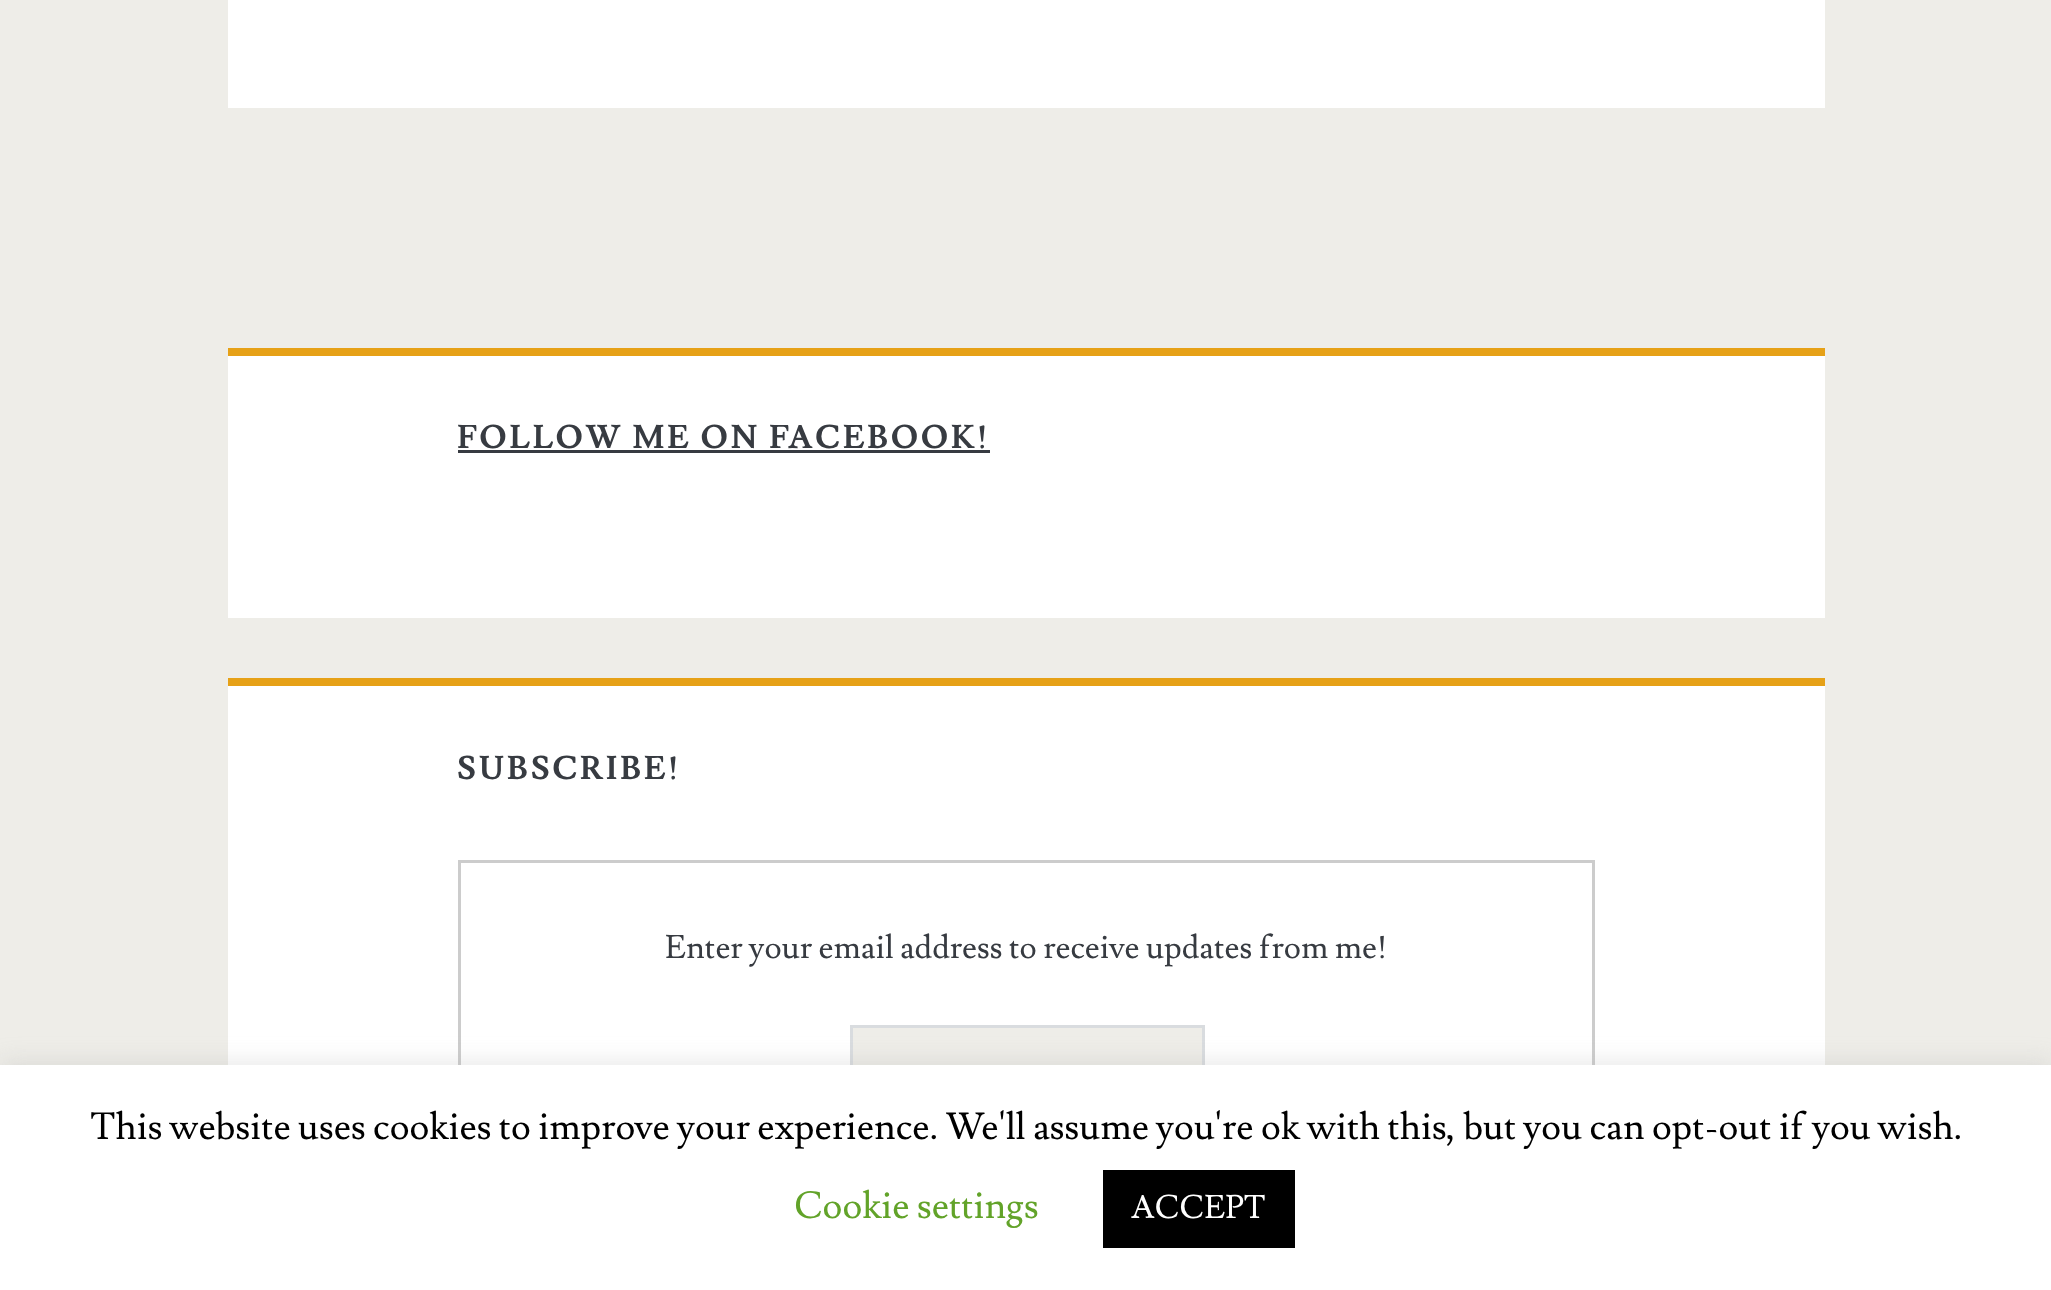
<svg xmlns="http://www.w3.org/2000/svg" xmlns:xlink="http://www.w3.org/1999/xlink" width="2051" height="1290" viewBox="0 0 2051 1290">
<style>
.cls-1{font:bold 32.5px Lusitana;letter-spacing:2.6px;fill:#373b41}
.cls-2{font:32.5px Lusitana;fill:#373b41}
.cls-3{font:37.5px Lusitana;fill:#000000}
.cls-4{font:37.5px Lusitana;fill:#62a329}
.cls-5{font:32.5px Lusitana;fill:#ffffff}
</style>
<rect width="100%" height="100%" fill="#eeede8"/>
<rect fill="#ffffff" x="228" y="0" width="1597" height="108"/>
<rect fill="#ffffff" x="228" y="356" width="1597" height="262"/>
<rect fill="#e6a117" x="228" y="348" width="1597" height="8"/>
<rect fill="#373b41" x="458" y="450" width="532" height="3"/>
<rect fill="#ffffff" x="228" y="686" width="1597" height="379"/>
<rect fill="#e6a117" x="228" y="678" width="1597" height="8"/>
<rect fill="none" stroke="#cccccc" stroke-width="3" x="459.5" y="861.5" width="1134" height="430"/>
<rect fill="#eeede8" x="853" y="1028" width="349" height="37"/>
<rect fill="none" stroke="#d9dcdf" stroke-width="3" x="851.5" y="1026.5" width="352" height="92"/>
<rect fill="#acabab" fill-opacity="0.3" filter="blur(12.5px)" x="0" y="1063" width="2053" height="225"/>
<rect fill="#ffffff" x="0" y="1065" width="2051" height="225"/>
<rect fill="#000000" x="1103" y="1170" width="192" height="78"/>
<text class="cls-1" x="457" y="448">FOLLOW ME ON FACEBOOK!</text>
<text class="cls-1" x="457" y="779">SUBSCRIBE!</text>
<text class="cls-2" x="665" y="958">Enter your email address to receive updates from me!</text>
<text class="cls-3" x="90" y="1139">This website uses cookies to improve your experience. We'll assume you're ok with this, but you can opt-out if you wish.</text>
<text class="cls-4" x="794" y="1218">Cookie settings</text>
<text class="cls-5" x="1131" y="1218">ACCEPT</text>
</svg>
